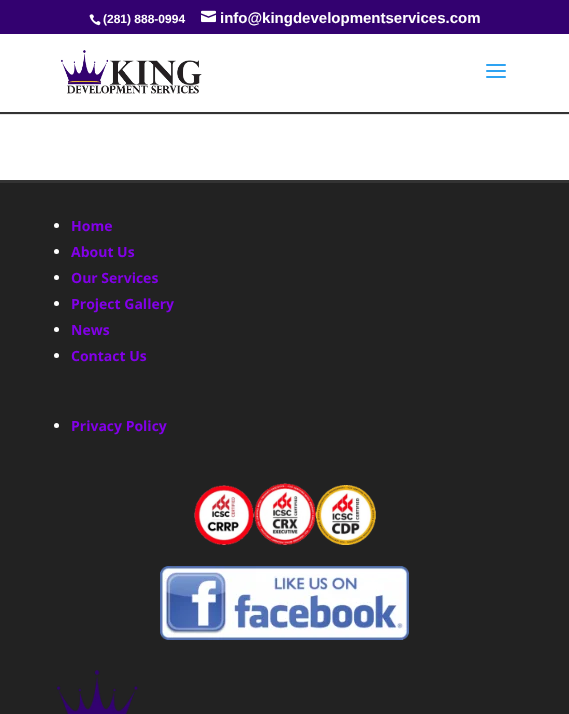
<svg xmlns="http://www.w3.org/2000/svg" xmlns:xlink="http://www.w3.org/1999/xlink" width="569" height="714" viewBox="0 0 569 714">
<style>
.cls-1{font:bold 12px Liberation Sans;fill:#ffffff}
.cls-2{font:bold 15px Liberation Sans;fill:#ffffff}
.cls-3{font:bold 14px Open Sans;fill:#8300e9}
</style>
<rect width="100%" height="100%" fill="#ffffff"/>
<rect fill="#330170" x="0" y="0" width="569" height="34"/>
<image xlink:href="image0.png" x="89" y="14" width="12" height="12"/>
<image xlink:href="image1.png" x="201" y="10" width="15" height="13"/>
<rect fill="#e6e6e6" x="0" y="114" width="569" height="1"/>
<rect fill="#333333" x="0" y="112" width="569" height="2"/>
<image xlink:href="image2.png" x="61" y="50" width="141" height="44"/>
<image xlink:href="image3.png" x="486" y="64" width="20" height="14"/>
<rect fill="#222222" x="0" y="183" width="569" height="531"/>
<rect fill="#333333" x="0" y="180" width="569" height="3"/>
<circle fill="#ffffff" cx="56.5" cy="225.5" r="2.5"/>
<circle fill="#ffffff" cx="56.5" cy="251.5" r="2.5"/>
<circle fill="#ffffff" cx="56.5" cy="277.5" r="2.5"/>
<circle fill="#ffffff" cx="56.5" cy="303.5" r="2.5"/>
<circle fill="#ffffff" cx="56.5" cy="329.5" r="2.5"/>
<circle fill="#ffffff" cx="56.5" cy="355.5" r="2.5"/>
<circle fill="#ffffff" cx="56.5" cy="425.5" r="2.5"/>
<image xlink:href="image4.png" x="194" y="485" width="60" height="60"/>
<image xlink:href="image5.png" x="254" y="483" width="62" height="62"/>
<image xlink:href="image6.png" x="316" y="485" width="60" height="60"/>
<image xlink:href="image7.png" x="160" y="566" width="249" height="74"/>
<image xlink:href="image8.png" x="57" y="670" width="81" height="44"/>
<text class="cls-1" x="103" y="23">(281) 888-0994</text>
<text class="cls-2" x="220" y="23">info@kingdevelopmentservices.com</text>
<text class="cls-3"><tspan x="71" y="231">Home</tspan><tspan x="71" y="257">About Us</tspan><tspan x="71" y="283">Our Services</tspan><tspan x="71" y="309">Project Gallery</tspan><tspan x="71" y="335">News</tspan><tspan x="71" y="361">Contact Us</tspan></text>
<text class="cls-3" x="71" y="431">Privacy Policy</text>
</svg>
